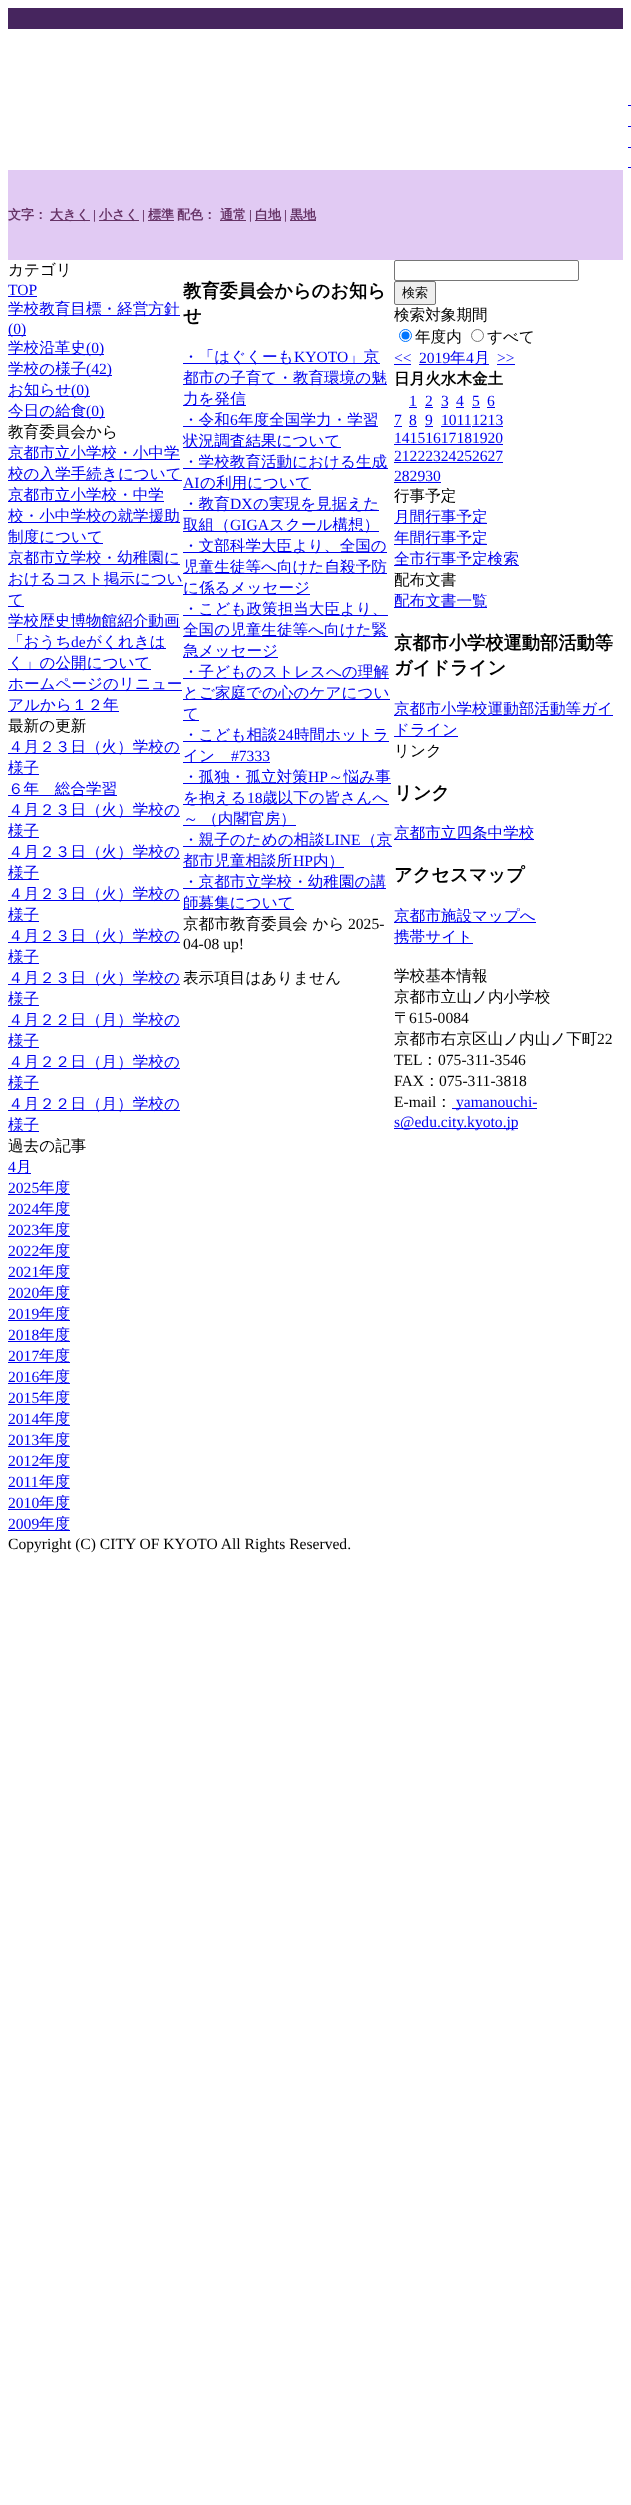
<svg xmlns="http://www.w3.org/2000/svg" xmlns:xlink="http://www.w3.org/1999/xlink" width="631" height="2505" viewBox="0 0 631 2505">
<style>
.cls-1{font:bold 13px WenQuanYi Zen Hei;fill:#663366}
.cls-2{font:bold 13px Liberation Serif;fill:#663366}
.cls-3{font:500 15.6px WenQuanYi Zen Hei;fill:#000000}
.cls-4{font:15.6px Liberation Serif;fill:#0000ee}
.cls-5{font:500 15.6px WenQuanYi Zen Hei;fill:#0000ee}
.cls-6{font:bold 18.25px WenQuanYi Zen Hei;fill:#000000}
.cls-7{font:15.6px Liberation Serif;fill:#000000}
.cls-8{font:500 13px WenQuanYi Zen Hei;fill:#000000}
.cls-9{font:bold 15.6px WenQuanYi Zen Hei;fill:#000000}
</style>
<rect width="100%" height="100%" fill="#ffffff"/>
<rect fill="#46255e" x="8" y="8" width="615" height="21"/>
<rect fill="#0000ee" x="628" y="105" width="3" height="1"/>
<rect fill="#0000ee" x="628" y="126" width="3" height="1"/>
<rect fill="#0000ee" x="628" y="147" width="3" height="1"/>
<rect fill="#0000ee" x="628" y="167" width="3" height="1"/>
<rect fill="#e1caf3" x="8" y="170" width="615" height="90"/>
<rect fill="#663366" x="50" y="220" width="40" height="1"/>
<rect fill="#663366" x="99" y="220" width="40" height="1"/>
<rect fill="#663366" x="148" y="220" width="26" height="1"/>
<rect fill="#663366" x="220" y="220" width="26" height="1"/>
<rect fill="#663366" x="255" y="220" width="26" height="1"/>
<rect fill="#663366" x="290" y="220" width="26" height="1"/>
<rect fill="#0000ee" x="8" y="296" width="29" height="1"/>
<rect fill="#0000ee" x="8" y="315" width="172" height="1"/>
<rect fill="#0000ee" x="8" y="335" width="18" height="1"/>
<rect fill="#0000ee" x="8" y="354" width="96" height="1"/>
<rect fill="#0000ee" x="8" y="375" width="104" height="1"/>
<rect fill="#0000ee" x="8" y="396" width="82" height="1"/>
<rect fill="#0000ee" x="8" y="417" width="97" height="1"/>
<rect fill="#0000ee" x="8" y="459" width="172" height="1"/>
<rect fill="#0000ee" x="8" y="480" width="174" height="1"/>
<rect fill="#0000ee" x="8" y="501" width="156" height="1"/>
<rect fill="#0000ee" x="8" y="522" width="172" height="1"/>
<rect fill="#0000ee" x="8" y="543" width="95" height="1"/>
<rect fill="#0000ee" x="8" y="564" width="172" height="1"/>
<rect fill="#0000ee" x="8" y="585" width="175" height="1"/>
<rect fill="#0000ee" x="8" y="606" width="16" height="1"/>
<rect fill="#0000ee" x="8" y="627" width="172" height="1"/>
<rect fill="#0000ee" x="8" y="648" width="158" height="1"/>
<rect fill="#0000ee" x="8" y="669" width="143" height="1"/>
<rect fill="#0000ee" x="8" y="690" width="174" height="1"/>
<rect fill="#0000ee" x="8" y="711" width="111" height="1"/>
<rect fill="#0000ee" x="8" y="753" width="172" height="1"/>
<rect fill="#0000ee" x="8" y="774" width="31" height="1"/>
<rect fill="#0000ee" x="8" y="795" width="109" height="1"/>
<rect fill="#0000ee" x="8" y="816" width="172" height="1"/>
<rect fill="#0000ee" x="8" y="837" width="31" height="1"/>
<rect fill="#0000ee" x="8" y="858" width="172" height="1"/>
<rect fill="#0000ee" x="8" y="879" width="31" height="1"/>
<rect fill="#0000ee" x="8" y="900" width="172" height="1"/>
<rect fill="#0000ee" x="8" y="921" width="31" height="1"/>
<rect fill="#0000ee" x="8" y="942" width="172" height="1"/>
<rect fill="#0000ee" x="8" y="963" width="31" height="1"/>
<rect fill="#0000ee" x="8" y="984" width="172" height="1"/>
<rect fill="#0000ee" x="8" y="1005" width="31" height="1"/>
<rect fill="#0000ee" x="8" y="1026" width="172" height="1"/>
<rect fill="#0000ee" x="8" y="1047" width="31" height="1"/>
<rect fill="#0000ee" x="8" y="1068" width="172" height="1"/>
<rect fill="#0000ee" x="8" y="1089" width="31" height="1"/>
<rect fill="#0000ee" x="8" y="1110" width="172" height="1"/>
<rect fill="#0000ee" x="8" y="1131" width="31" height="1"/>
<rect fill="#0000ee" x="8" y="1173" width="23" height="1"/>
<rect fill="#0000ee" x="8" y="1194" width="62" height="1"/>
<rect fill="#0000ee" x="8" y="1215" width="62" height="1"/>
<rect fill="#0000ee" x="8" y="1236" width="62" height="1"/>
<rect fill="#0000ee" x="8" y="1257" width="62" height="1"/>
<rect fill="#0000ee" x="8" y="1278" width="62" height="1"/>
<rect fill="#0000ee" x="8" y="1299" width="62" height="1"/>
<rect fill="#0000ee" x="8" y="1320" width="62" height="1"/>
<rect fill="#0000ee" x="8" y="1341" width="62" height="1"/>
<rect fill="#0000ee" x="8" y="1362" width="62" height="1"/>
<rect fill="#0000ee" x="8" y="1383" width="62" height="1"/>
<rect fill="#0000ee" x="8" y="1404" width="62" height="1"/>
<rect fill="#0000ee" x="8" y="1425" width="62" height="1"/>
<rect fill="#0000ee" x="8" y="1446" width="62" height="1"/>
<rect fill="#0000ee" x="8" y="1467" width="62" height="1"/>
<rect fill="#0000ee" x="8" y="1488" width="62" height="1"/>
<rect fill="#0000ee" x="8" y="1509" width="62" height="1"/>
<rect fill="#0000ee" x="8" y="1530" width="62" height="1"/>
<rect fill="#0000ee" x="183" y="363" width="197" height="1"/>
<rect fill="#0000ee" x="183" y="384" width="204" height="1"/>
<rect fill="#0000ee" x="183" y="405" width="63" height="1"/>
<rect fill="#0000ee" x="183" y="426" width="195" height="1"/>
<rect fill="#0000ee" x="183" y="447" width="158" height="1"/>
<rect fill="#0000ee" x="183" y="468" width="205" height="1"/>
<rect fill="#0000ee" x="183" y="489" width="128" height="1"/>
<rect fill="#0000ee" x="183" y="510" width="196" height="1"/>
<rect fill="#0000ee" x="183" y="531" width="196" height="1"/>
<rect fill="#0000ee" x="183" y="552" width="204" height="1"/>
<rect fill="#0000ee" x="183" y="573" width="204" height="1"/>
<rect fill="#0000ee" x="183" y="594" width="127" height="1"/>
<rect fill="#0000ee" x="183" y="615" width="205" height="1"/>
<rect fill="#0000ee" x="183" y="636" width="205" height="1"/>
<rect fill="#0000ee" x="183" y="657" width="95" height="1"/>
<rect fill="#0000ee" x="183" y="678" width="206" height="1"/>
<rect fill="#0000ee" x="183" y="699" width="207" height="1"/>
<rect fill="#0000ee" x="183" y="720" width="16" height="1"/>
<rect fill="#0000ee" x="183" y="741" width="206" height="1"/>
<rect fill="#0000ee" x="183" y="762" width="87" height="1"/>
<rect fill="#0000ee" x="183" y="783" width="208" height="1"/>
<rect fill="#0000ee" x="183" y="804" width="206" height="1"/>
<rect fill="#0000ee" x="183" y="825" width="113" height="1"/>
<rect fill="#0000ee" x="183" y="846" width="209" height="1"/>
<rect fill="#0000ee" x="183" y="867" width="161" height="1"/>
<rect fill="#0000ee" x="183" y="888" width="203" height="1"/>
<rect fill="#0000ee" x="183" y="909" width="111" height="1"/>
<rect fill="none" stroke="#767676" x="394.5" y="260.5" width="184" height="20" rx="1.5"/>
<rect fill="#efefef" stroke="#767676" x="394.5" y="281.5" width="41" height="23" rx="1.5"/>
<circle fill="none" stroke="#0075ff" cx="405.5" cy="335.5" r="6"/>
<circle fill="#0075ff" cx="405.5" cy="335.5" r="4"/>
<circle fill="none" stroke="#767676" cx="477.5" cy="335.5" r="6"/>
<rect fill="#0000ee" x="394" y="364" width="17" height="1"/>
<rect fill="#0000ee" x="419" y="364" width="70" height="1"/>
<rect fill="#0000ee" x="497" y="364" width="18" height="1"/>
<rect fill="#0000ee" x="409" y="407" width="8" height="1"/>
<rect fill="#0000ee" x="425" y="407" width="8" height="1"/>
<rect fill="#0000ee" x="441" y="407" width="7" height="1"/>
<rect fill="#0000ee" x="456" y="407" width="8" height="1"/>
<rect fill="#0000ee" x="472" y="407" width="8" height="1"/>
<rect fill="#0000ee" x="487" y="407" width="8" height="1"/>
<rect fill="#0000ee" x="394" y="426" width="8" height="1"/>
<rect fill="#0000ee" x="409" y="426" width="8" height="1"/>
<rect fill="#0000ee" x="425" y="426" width="8" height="1"/>
<rect fill="#0000ee" x="441" y="426" width="30" height="1"/>
<rect fill="#0000ee" x="472" y="426" width="31" height="1"/>
<rect fill="#0000ee" x="394" y="444" width="109" height="1"/>
<rect fill="#0000ee" x="394" y="462" width="109" height="1"/>
<rect fill="#0000ee" x="394" y="482" width="47" height="1"/>
<rect fill="#0000ee" x="394" y="523" width="93" height="1"/>
<rect fill="#0000ee" x="394" y="544" width="93" height="1"/>
<rect fill="#0000ee" x="394" y="565" width="125" height="1"/>
<rect fill="#0000ee" x="394" y="607" width="93" height="1"/>
<rect fill="#0000ee" x="394" y="715" width="219" height="1"/>
<rect fill="#0000ee" x="394" y="736" width="64" height="1"/>
<rect fill="#0000ee" x="394" y="839" width="140" height="1"/>
<rect fill="#0000ee" x="394" y="922" width="142" height="1"/>
<rect fill="#0000ee" x="394" y="943" width="79" height="1"/>
<rect fill="#0000ee" x="452" y="1108" width="85" height="1"/>
<rect fill="#0000ee" x="394" y="1128" width="124" height="1"/>
<text class="cls-1" x="8" y="219">文字：</text>
<text class="cls-1" x="50" y="219">大きく</text>
<text class="cls-2" x="93" y="219">|</text>
<text class="cls-1" x="99" y="219">小さく</text>
<text class="cls-2" x="142" y="219">|</text>
<text class="cls-1" x="148" y="219">標準</text>
<text class="cls-1" x="177" y="219">配色：</text>
<text class="cls-1" x="220" y="219">通常</text>
<text class="cls-2" x="249" y="219">|</text>
<text class="cls-1" x="255" y="219">白地</text>
<text class="cls-2" x="284" y="219">|</text>
<text class="cls-1" x="290" y="219">黒地</text>
<text class="cls-3" x="8" y="275">カテゴリ</text>
<text class="cls-4" x="8" y="295">TOP</text>
<text class="cls-5" x="8" y="314">学校教育目標・経営方針</text>
<text class="cls-4" x="8" y="334">(0)</text>
<text class="cls-5" x="8" y="353">学校沿革史</text>
<text class="cls-4" x="86" y="353">(0)</text>
<text class="cls-5" x="8" y="374">学校の様子</text>
<text class="cls-4" x="86" y="374">(42)</text>
<text class="cls-5" x="8" y="395">お知らせ</text>
<text class="cls-4" x="71" y="395">(0)</text>
<text class="cls-5" x="8" y="416">今日の給食</text>
<text class="cls-4" x="86" y="416">(0)</text>
<text class="cls-3" x="8" y="437">教育委員会から</text>
<text class="cls-5"><tspan x="8" y="458">京都市立小学校・小中学</tspan><tspan x="8" y="479">校の入学手続きについて</tspan><tspan x="8" y="500">京都市立小学校・中学</tspan><tspan x="8" y="521">校・小中学校の就学援助</tspan><tspan x="8" y="542">制度について</tspan><tspan x="8" y="563">京都市立学校・幼稚園に</tspan><tspan x="8" y="584">おけるコスト掲示につい</tspan><tspan x="8" y="605">て</tspan><tspan x="8" y="626">学校歴史博物館紹介動画</tspan><tspan x="8" y="647">「おうち</tspan></text>
<text class="cls-4" x="71" y="647">de</text>
<text class="cls-5" x="86" y="647">がくれきは</text>
<text class="cls-5"><tspan x="8" y="668">く」の公開について</tspan><tspan x="8" y="689">ホームページのリニュー</tspan><tspan x="8" y="710">アルから１２年</tspan></text>
<text class="cls-3" x="8" y="731">最新の更新</text>
<text class="cls-5"><tspan x="8" y="752">４月２３日（火）学校の</tspan><tspan x="8" y="773">様子</tspan><tspan x="8" y="794">６年　総合学習</tspan><tspan x="8" y="815">４月２３日（火）学校の</tspan><tspan x="8" y="836">様子</tspan><tspan x="8" y="857">４月２３日（火）学校の</tspan><tspan x="8" y="878">様子</tspan><tspan x="8" y="899">４月２３日（火）学校の</tspan><tspan x="8" y="920">様子</tspan><tspan x="8" y="941">４月２３日（火）学校の</tspan><tspan x="8" y="962">様子</tspan><tspan x="8" y="983">４月２３日（火）学校の</tspan><tspan x="8" y="1004">様子</tspan><tspan x="8" y="1025">４月２２日（月）学校の</tspan><tspan x="8" y="1046">様子</tspan><tspan x="8" y="1067">４月２２日（月）学校の</tspan><tspan x="8" y="1088">様子</tspan><tspan x="8" y="1109">４月２２日（月）学校の</tspan><tspan x="8" y="1130">様子</tspan></text>
<text class="cls-3" x="8" y="1151">過去の記事</text>
<text class="cls-4" x="8" y="1172">4</text>
<text class="cls-5" x="16" y="1172">月</text>
<text class="cls-4" x="8" y="1193">2025</text>
<text class="cls-5" x="39" y="1193">年度</text>
<text class="cls-4" x="8" y="1214">2024</text>
<text class="cls-5" x="39" y="1214">年度</text>
<text class="cls-4" x="8" y="1235">2023</text>
<text class="cls-5" x="39" y="1235">年度</text>
<text class="cls-4" x="8" y="1256">2022</text>
<text class="cls-5" x="39" y="1256">年度</text>
<text class="cls-4" x="8" y="1277">2021</text>
<text class="cls-5" x="39" y="1277">年度</text>
<text class="cls-4" x="8" y="1298">2020</text>
<text class="cls-5" x="39" y="1298">年度</text>
<text class="cls-4" x="8" y="1319">2019</text>
<text class="cls-5" x="39" y="1319">年度</text>
<text class="cls-4" x="8" y="1340">2018</text>
<text class="cls-5" x="39" y="1340">年度</text>
<text class="cls-4" x="8" y="1361">2017</text>
<text class="cls-5" x="39" y="1361">年度</text>
<text class="cls-4" x="8" y="1382">2016</text>
<text class="cls-5" x="39" y="1382">年度</text>
<text class="cls-4" x="8" y="1403">2015</text>
<text class="cls-5" x="39" y="1403">年度</text>
<text class="cls-4" x="8" y="1424">2014</text>
<text class="cls-5" x="39" y="1424">年度</text>
<text class="cls-4" x="8" y="1445">2013</text>
<text class="cls-5" x="39" y="1445">年度</text>
<text class="cls-4" x="8" y="1466">2012</text>
<text class="cls-5" x="39" y="1466">年度</text>
<text class="cls-4" x="8" y="1487">2011</text>
<text class="cls-5" x="39" y="1487">年度</text>
<text class="cls-4" x="8" y="1508">2010</text>
<text class="cls-5" x="39" y="1508">年度</text>
<text class="cls-4" x="8" y="1529">2009</text>
<text class="cls-5" x="39" y="1529">年度</text>
<text class="cls-6"><tspan x="183" y="297">教育委員会からのお知ら</tspan><tspan x="183" y="322">せ</tspan></text>
<text class="cls-5" x="183" y="362">・「はぐくーも</text>
<text class="cls-4" x="294" y="362">KYOTO</text>
<text class="cls-5" x="348" y="362">」京</text>
<text class="cls-5"><tspan x="183" y="383">都市の子育て・教育環境の魅</tspan><tspan x="183" y="404">力を発信</tspan><tspan x="183" y="425">・令和</tspan></text>
<text class="cls-4" x="230" y="425">6</text>
<text class="cls-5" x="238" y="425">年度全国学力・学習</text>
<text class="cls-5"><tspan x="183" y="446">状況調査結果について</tspan><tspan x="183" y="467">・学校教育活動における生成</tspan></text>
<text class="cls-4" x="183" y="488">AI</text>
<text class="cls-5" x="200" y="488">の利用について</text>
<text class="cls-5" x="183" y="509">・教育</text>
<text class="cls-4" x="230" y="509">DX</text>
<text class="cls-5" x="253" y="509">の実現を見据えた</text>
<text class="cls-5" x="183" y="530">取組（</text>
<text class="cls-4" x="230" y="530">GIGA</text>
<text class="cls-5" x="269" y="530">スクール構想）</text>
<text class="cls-5"><tspan x="183" y="551">・文部科学大臣より、全国の</tspan><tspan x="183" y="572">児童生徒等へ向けた自殺予防</tspan><tspan x="183" y="593">に係るメッセージ</tspan><tspan x="183" y="614">・こども政策担当大臣より、</tspan><tspan x="183" y="635">全国の児童生徒等へ向けた緊</tspan><tspan x="183" y="656">急メッセージ</tspan><tspan x="183" y="677">・子どものストレスへの理解</tspan><tspan x="183" y="698">とご家庭での心のケアについ</tspan><tspan x="183" y="719">て</tspan><tspan x="183" y="740">・こども相談</tspan></text>
<text class="cls-4" x="278" y="740">24</text>
<text class="cls-5" x="294" y="740">時間ホットラ</text>
<text class="cls-5" x="183" y="761">イン</text>
<text class="cls-4" x="231" y="761">#7333</text>
<text class="cls-5" x="183" y="782">・孤独・孤立対策</text>
<text class="cls-4" x="308" y="782">HP</text>
<text class="cls-5" x="328" y="782">～悩み事</text>
<text class="cls-5" x="183" y="803">を抱える</text>
<text class="cls-4" x="247" y="803">18</text>
<text class="cls-5" x="262" y="803">歳以下の皆さんへ</text>
<text class="cls-5"><tspan x="183" y="824" word-spacing="-1">～ （内閣官房）</tspan><tspan x="183" y="845">・親子のための相談</tspan></text>
<text class="cls-4" x="325" y="845">LINE</text>
<text class="cls-5" x="361" y="845">（京</text>
<text class="cls-5" x="183" y="866">都市児童相談所</text>
<text class="cls-4" x="293" y="866">HP</text>
<text class="cls-5" x="313" y="866">内）</text>
<text class="cls-5"><tspan x="183" y="887">・京都市立学校・幼稚園の講</tspan><tspan x="183" y="908">師募集について</tspan></text>
<text class="cls-3" x="183" y="929">京都市教育委員会 から</text>
<text class="cls-7" x="348" y="929">2025-</text>
<text class="cls-7" x="183" y="949">04-08 up!</text>
<text class="cls-3" x="183" y="983">表示項目はありません</text>
<text class="cls-8" x="402" y="297">検索</text>
<text class="cls-3" x="394" y="320">検索対象期間</text>
<text class="cls-3" x="415" y="342">年度内</text>
<text class="cls-3" x="487" y="342">すべて</text>
<text class="cls-4" x="394" y="363">&lt;&lt;</text>
<text class="cls-4" x="419" y="363">2019</text>
<text class="cls-5" x="450" y="363">年</text>
<text class="cls-4" x="466" y="363">4</text>
<text class="cls-5" x="474" y="363">月</text>
<text class="cls-4" x="497" y="363">&gt;&gt;</text>
<text class="cls-9" x="394" y="384">日月火水木金土</text>
<text class="cls-4" x="409" y="406">1</text>
<text class="cls-4" x="425" y="406">2</text>
<text class="cls-4" x="441" y="406">3</text>
<text class="cls-4" x="456" y="406">4</text>
<text class="cls-4" x="472" y="406">5</text>
<text class="cls-4" x="487" y="406">6</text>
<text class="cls-4" x="394" y="425">7</text>
<text class="cls-4" x="409" y="425">8</text>
<text class="cls-4" x="425" y="425">9</text>
<text class="cls-4" x="441" y="425">1011</text>
<text class="cls-4" x="472" y="425">1213</text>
<text class="cls-4"><tspan x="394" y="443">14151617181920</tspan><tspan x="394" y="461">21222324252627</tspan><tspan x="394" y="481">282930</tspan></text>
<text class="cls-3" x="394" y="501">行事予定</text>
<text class="cls-5"><tspan x="394" y="522">月間行事予定</tspan><tspan x="394" y="543">年間行事予定</tspan><tspan x="394" y="564">全市行事予定検索</tspan></text>
<text class="cls-3" x="394" y="585">配布文書</text>
<text class="cls-5" x="394" y="606">配布文書一覧</text>
<text class="cls-6"><tspan x="394" y="649">京都市小学校運動部活動等</tspan><tspan x="394" y="674">ガイドライン</tspan></text>
<text class="cls-5"><tspan x="394" y="714">京都市小学校運動部活動等ガイ</tspan><tspan x="394" y="735">ドライン</tspan></text>
<text class="cls-3" x="394" y="756">リンク</text>
<text class="cls-6" x="394" y="799">リンク</text>
<text class="cls-5" x="394" y="838">京都市立四条中学校</text>
<text class="cls-6" x="394" y="881">アクセスマップ</text>
<text class="cls-5"><tspan x="394" y="921">京都市施設マップへ</tspan><tspan x="394" y="942">携帯サイト</tspan></text>
<text class="cls-3"><tspan x="394" y="981">学校基本情報</tspan><tspan x="394" y="1002">京都市立山ノ内小学校</tspan><tspan x="394" y="1023">〒</tspan></text>
<text class="cls-7" x="409" y="1023">615-0084</text>
<text class="cls-3" x="394" y="1044">京都市右京区山ノ内山ノ下町</text>
<text class="cls-7" x="597" y="1044">22</text>
<text class="cls-7" x="394" y="1065">TEL</text>
<text class="cls-3" x="422" y="1065">：</text>
<text class="cls-7" x="438" y="1065">075-311-3546</text>
<text class="cls-7" x="394" y="1086">FAX</text>
<text class="cls-3" x="424" y="1086">：</text>
<text class="cls-7" x="439" y="1086">075-311-3818</text>
<text class="cls-7" x="394" y="1107">E-mail</text>
<text class="cls-3" x="436" y="1107">：</text>
<text class="cls-4" x="456" y="1107">yamanouchi-</text>
<text class="cls-4" x="394" y="1127">s@edu.city.kyoto.jp</text>
<text class="cls-7" x="8" y="1549">Copyright (C) CITY OF KYOTO All Rights Reserved.</text>
</svg>
